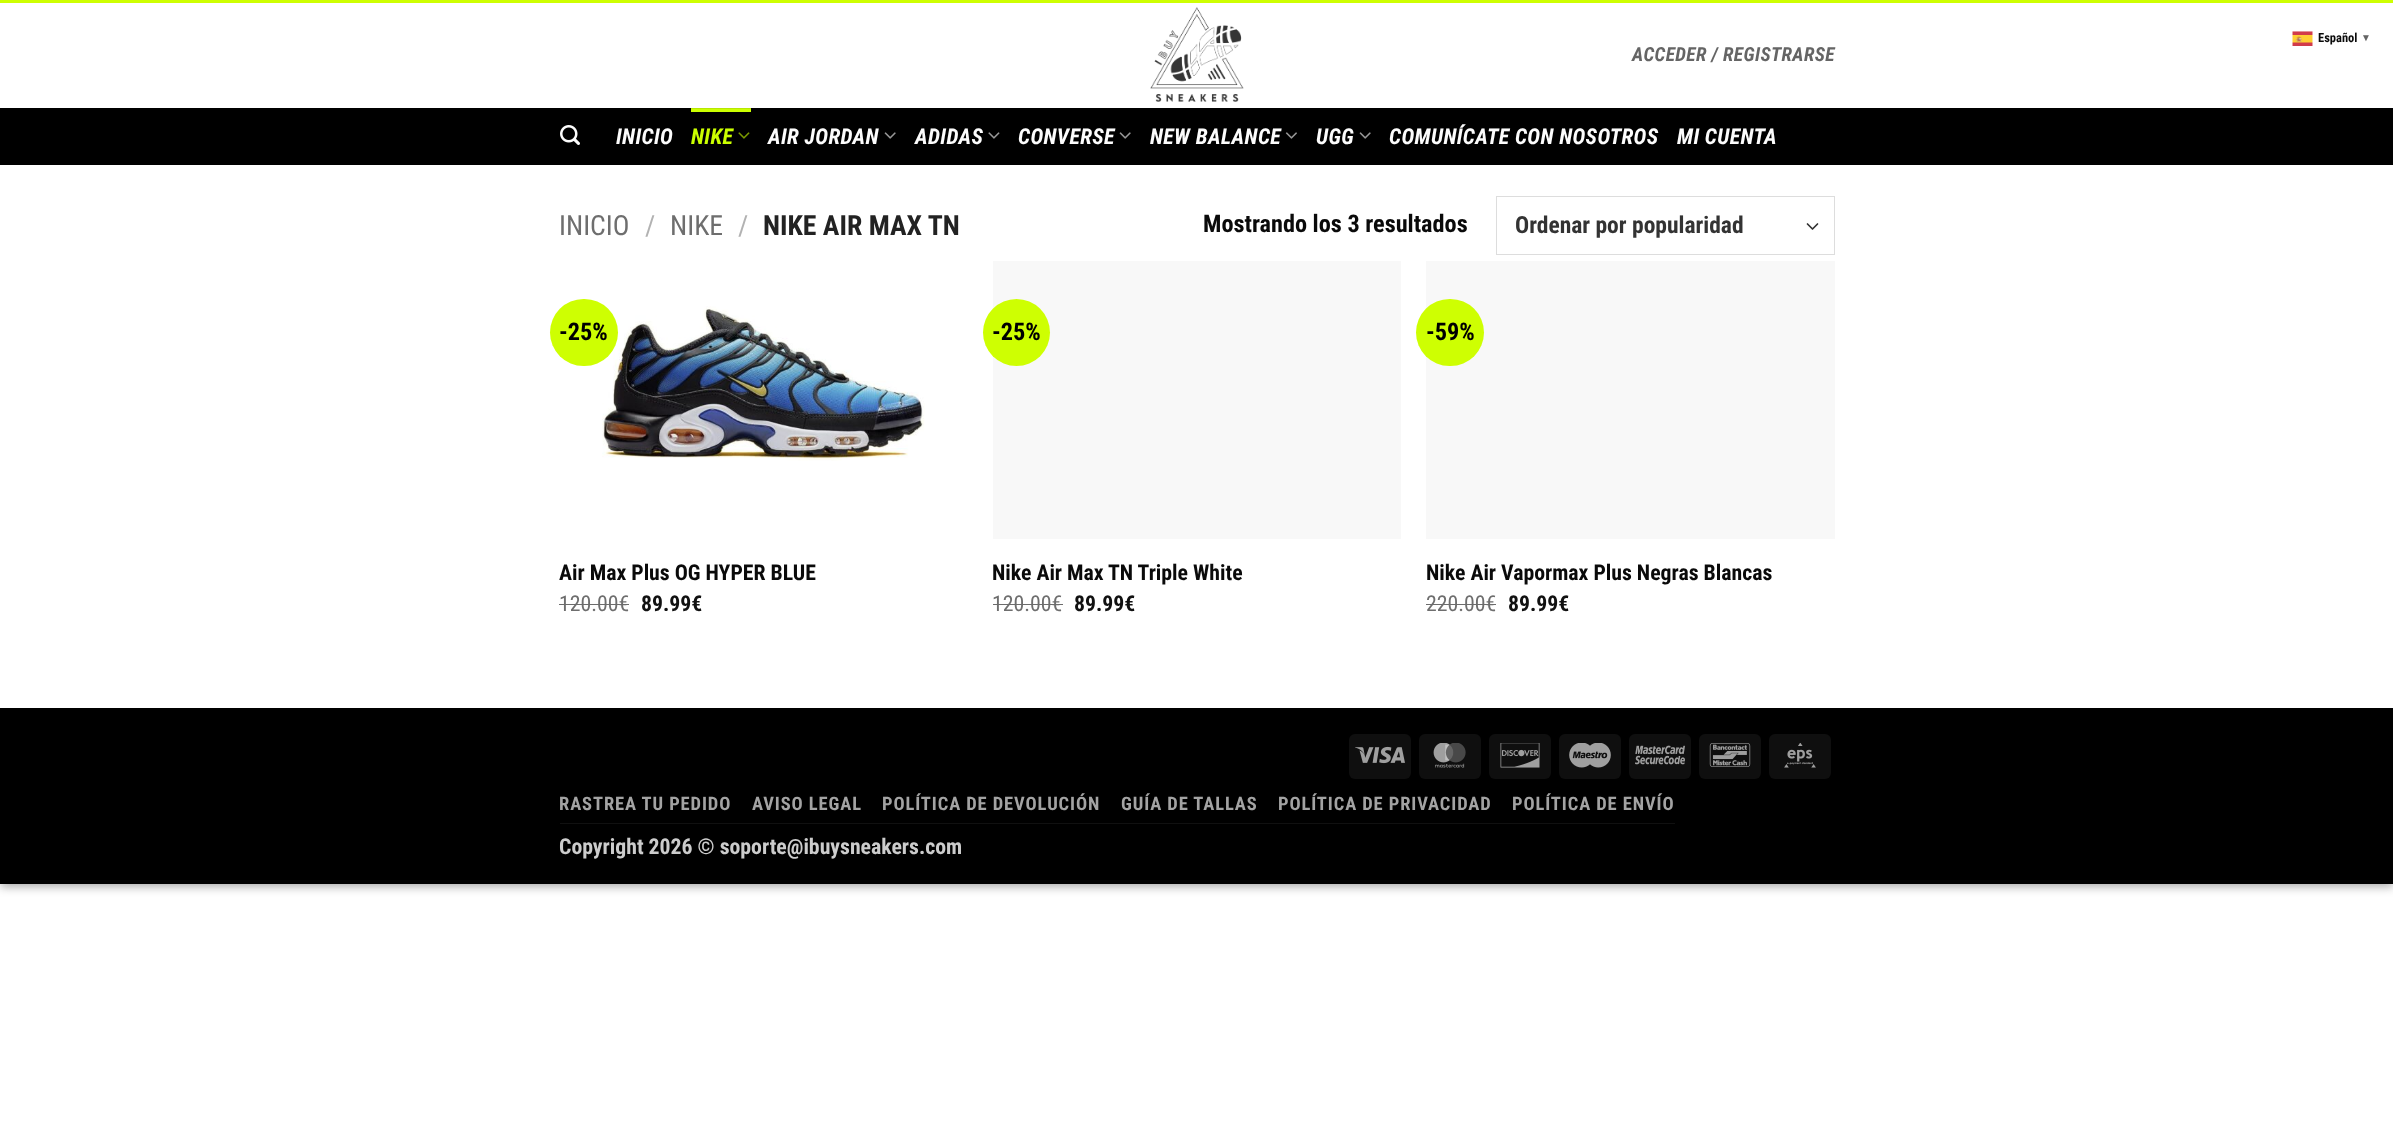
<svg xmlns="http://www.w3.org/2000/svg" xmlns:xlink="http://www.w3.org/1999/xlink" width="2393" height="1148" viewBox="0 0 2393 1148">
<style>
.cls-1{font:bold 12.5px Roboto Condensed;fill:#0a0a0a}
.cls-2{font:bold 10px Liberation Sans;fill:#656565}
.cls-3{font:italic bold 19.4px Roboto Condensed;letter-spacing:0.4px;fill:#656565}
.cls-4{font:italic bold 21.75px Roboto Condensed;letter-spacing:0.4px;fill:#fcfcfc}
.cls-5{font:italic bold 21.75px Roboto Condensed;letter-spacing:0.4px;fill:#cbff00}
.cls-6{font:27.75px Roboto Condensed;fill:#6e6e6e}
.cls-7{font:27.75px Roboto Condensed;fill:#b2b2b2}
.cls-8{font:bold 27.75px Roboto Condensed;fill:#222222}
.cls-9{font:bold 24.25px Roboto Condensed;fill:#0a0a0a}
.cls-10{font:bold 23.5px Roboto Condensed;fill:#333333}
.cls-11{font:bold 24.25px Roboto Condensed;fill:#000000}
.cls-12{font:bold 21.75px Roboto Condensed;fill:#0a0a0a}
.cls-13{font:21.75px Roboto Condensed;fill:#6e6e6e}
.cls-14{font:bold 21.75px Roboto Condensed;fill:#111111}
.cls-15{font:bold 18.5px Roboto Condensed;letter-spacing:0.9px;fill:#a3a3a3}
.cls-16{font:bold 21.75px Roboto Condensed;fill:#cccccc}
</style>
<rect width="100%" height="100%" fill="#ffffff"/>
<rect fill="#000000" fill-opacity="0.23" filter="blur(4px)" x="0" y="-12" width="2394" height="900"/>
<rect fill="#000000" fill-opacity="0.16" filter="blur(4px)" x="5" y="-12" width="2384" height="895"/>
<rect fill="#ffffff" x="0" y="3" width="2393" height="705"/>
<image xlink:href="image0.png" x="2292" y="31" width="21" height="15"/>
<rect fill="#ceff02" x="0" y="0" width="2393" height="3"/>
<image xlink:href="image1.png" x="1150" y="7" width="94" height="95"/>
<rect fill="#000000" x="0" y="108" width="2393" height="57"/>
<image xlink:href="image2.png" x="560" y="125" width="20" height="20"/>
<rect fill="#cbff00" x="691" y="109" width="60" height="3"/>
<rect fill="#b8e701" x="691" y="108" width="60" height="1"/>
<image xlink:href="image3.png" x="738" y="132" width="12" height="7"/>
<image xlink:href="image4.png" x="884" y="132" width="12" height="7"/>
<image xlink:href="image5.png" x="988" y="132" width="12" height="7"/>
<image xlink:href="image4.png" x="1119" y="132" width="12" height="7"/>
<image xlink:href="image6.png" x="1285" y="132" width="12" height="7"/>
<image xlink:href="image4.png" x="1359" y="132" width="12" height="7"/>
<path fill="none" stroke="#333333" stroke-width="1.7" stroke-linecap="round" stroke-linejoin="round" d="M1807.5 224L1812.5 229L1817.5 224"/>
<rect fill="none" stroke="#dddddd" x="1496.5" y="196.5" width="338" height="58"/>
<image xlink:href="image7.png" x="602" y="306" width="323" height="155"/>
<rect fill="#ceff02" x="550" y="299" width="68" height="67" rx="33.5"/>
<rect fill="#f8f8f8" x="993" y="261" width="408" height="278"/>
<circle fill="#ceff02" cx="1016.5" cy="332.5" r="33.5"/>
<rect fill="#f8f8f8" x="1426" y="261" width="409" height="278"/>
<rect fill="#ceff02" x="1416" y="299" width="68" height="67" rx="33.5"/>
<rect fill="#000000" x="0" y="708" width="2393" height="176"/>
<rect fill="#0f0f0f" x="1349" y="734" width="62" height="45" rx="6"/>
<image xlink:href="image8.png" x="1355" y="746" width="50" height="18"/>
<rect fill="#0f0f0f" x="1419" y="734" width="62" height="45" rx="6"/>
<image xlink:href="image9.png" x="1433" y="743" width="33" height="25"/>
<rect fill="#0f0f0f" x="1489" y="734" width="62" height="45" rx="6"/>
<image xlink:href="image10.png" x="1500" y="743" width="40" height="25"/>
<rect fill="#0f0f0f" x="1559" y="734" width="62" height="45" rx="6"/>
<image xlink:href="image11.png" x="1569" y="743" width="42" height="25"/>
<rect fill="#0f0f0f" x="1629" y="734" width="62" height="45" rx="6"/>
<image xlink:href="image12.png" x="1635" y="745" width="50" height="20"/>
<rect fill="#0f0f0f" x="1699" y="734" width="62" height="45" rx="6"/>
<image xlink:href="image13.png" x="1709" y="743" width="42" height="24"/>
<rect fill="#0f0f0f" x="1769" y="734" width="62" height="45" rx="6"/>
<image xlink:href="image14.png" x="1784" y="743" width="32" height="25"/>
<rect fill="#101010" x="560" y="823" width="1115" height="1"/>
<text class="cls-1" x="2318" y="42">Español</text>
<text class="cls-2" x="2361" y="41">▼</text>
<text class="cls-3" x="1632" y="61">ACCEDER / REGISTRARSE</text>
<text class="cls-4" x="616" y="144">INICIO</text>
<text class="cls-5" x="691" y="144">NIKE</text>
<text class="cls-4" x="768" y="144">AIR JORDAN</text>
<text class="cls-4" x="915" y="144">ADIDAS</text>
<text class="cls-4" x="1018" y="144">CONVERSE</text>
<text class="cls-4" x="1150" y="144">NEW BALANCE</text>
<text class="cls-4" x="1316" y="144">UGG</text>
<text class="cls-4" x="1389" y="144">COMUNÍCATE CON NOSOTROS</text>
<text class="cls-4" x="1677" y="144">MI CUENTA</text>
<text class="cls-6" x="559" y="235">INICIO</text>
<text class="cls-7" x="645" y="235">/</text>
<text class="cls-6" x="670" y="235">NIKE</text>
<text class="cls-7" x="738" y="235">/</text>
<text class="cls-8" x="763" y="235">NIKE AIR MAX TN</text>
<text class="cls-9" x="1203" y="232">Mostrando los 3 resultados</text>
<text class="cls-10" x="1515" y="233">Ordenar por popularidad</text>
<text class="cls-11" x="559" y="340">-25%</text>
<text class="cls-12" x="559" y="580">Air Max Plus OG HYPER BLUE</text>
<text class="cls-13" x="559" y="611">120.00€</text>
<rect fill="#6c6c6c" x="559" y="604" width="70" height="1"/>
<text class="cls-14" x="641" y="611">89.99€</text>
<text class="cls-11" x="992" y="340">-25%</text>
<text class="cls-12" x="992" y="580">Nike Air Max TN Triple White</text>
<text class="cls-13" x="992" y="611">120.00€</text>
<rect fill="#6c6c6c" x="993" y="604" width="70" height="1"/>
<text class="cls-14" x="1074" y="611">89.99€</text>
<text class="cls-11" x="1426" y="340">-59%</text>
<text class="cls-12" x="1426" y="580">Nike Air Vapormax Plus Negras Blancas</text>
<text class="cls-13" x="1426" y="611">220.00€</text>
<rect fill="#6c6c6c" x="1426" y="604" width="70" height="1"/>
<text class="cls-14" x="1508" y="611">89.99€</text>
<text class="cls-15" x="559" y="810">RASTREA TU PEDIDO</text>
<text class="cls-15" x="752" y="810">AVISO LEGAL</text>
<text class="cls-15" x="882" y="810">POLÍTICA DE DEVOLUCIÓN</text>
<text class="cls-15" x="1121" y="810">GUÍA DE TALLAS</text>
<text class="cls-15" x="1278" y="810">POLÍTICA DE PRIVACIDAD</text>
<text class="cls-15" x="1512" y="810">POLÍTICA DE ENVÍO</text>
<text class="cls-16" x="559" y="854">Copyright 2026 © soporte@ibuysneakers.com</text>
</svg>
